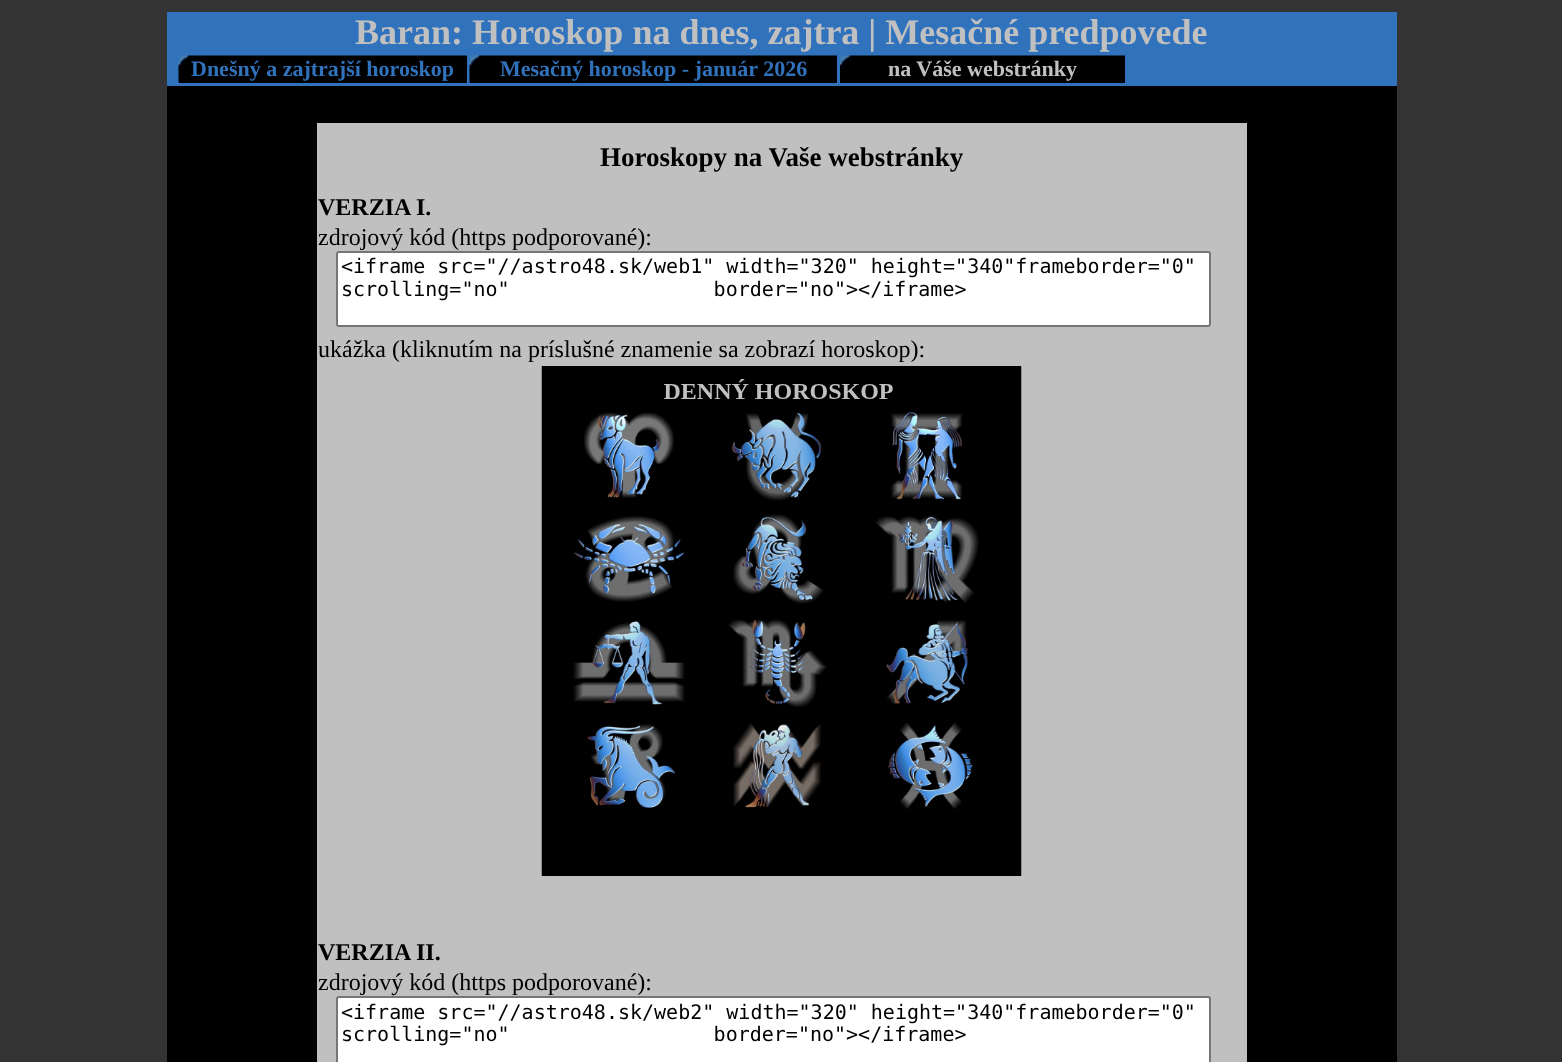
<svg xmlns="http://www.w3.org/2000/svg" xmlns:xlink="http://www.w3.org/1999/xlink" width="1562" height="1062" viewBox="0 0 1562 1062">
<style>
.cls-1{font:bold 36px Liberation Serif;fill:#c0c0c0}
.cls-2{font:bold 22px Liberation Serif;fill:#3072bc}
.cls-3{font:bold 22px Liberation Serif;fill:#c0c0c0}
.cls-4{font:bold 27px Liberation Serif;fill:#000000}
.cls-5{font:bold 24px Liberation Serif;fill:#000000}
.cls-6{font:24px Liberation Serif;fill:#000000}
.cls-7{font:20px DejaVu Sans Mono;fill:#000000}
</style>
<rect width="100%" height="100%" fill="#333333"/>
<rect fill="#3072bc" x="167" y="12" width="1230" height="74"/>
<rect fill="#000000" x="179" y="56" width="288" height="27"/>
<image xlink:href="image0.png" x="178" y="55" width="289" height="28"/>
<rect fill="#000000" x="470" y="82" width="367" height="1"/>
<image xlink:href="image1.png" x="469" y="55" width="368" height="28"/>
<rect fill="#000000" x="840" y="67" width="285" height="16"/>
<image xlink:href="image2.png" x="840" y="55" width="285" height="12"/>
<rect fill="#000000" x="167" y="86" width="1230" height="976"/>
<rect fill="#c0c0c0" x="317" y="123" width="930" height="939"/>
<rect fill="#ffffff" stroke="#767676" stroke-width="2" x="337" y="252" width="873" height="74" rx="2"/>
<image xlink:href="image3.png" x="541" y="366" width="481" height="510"/>
<rect fill="#ffffff" stroke="#767676" stroke-width="2" x="337" y="997" width="873" height="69" rx="2"/>
<text class="cls-1" x="355" y="44">Baran: Horoskop na dnes, zajtra | Mesačné predpovede</text>
<text class="cls-2" x="191" y="76">Dnešný a zajtrajší horoskop</text>
<text class="cls-2" x="500" y="76">Mesačný horoskop - január 2026</text>
<text class="cls-3" x="888" y="76">na Váše webstránky</text>
<text class="cls-4" x="600" y="166">Horoskopy na Vaše webstránky</text>
<text class="cls-5" x="318" y="215">VERZIA I.</text>
<text class="cls-6" x="318" y="245">zdrojový kód (https podporované):</text>
<text class="cls-7"><tspan x="341" y="273">&lt;iframe src="//astro48.sk/web1" width="320" height="340"frameborder="0"</tspan><tspan x="341" y="296" word-spacing="192">scrolling="no" border="no"&gt;&lt;/iframe&gt;</tspan></text>
<text class="cls-6" x="318" y="357">ukážka (kliknutím na príslušné znamenie sa zobrazí horoskop):</text>
<text class="cls-5" x="318" y="960">VERZIA II.</text>
<text class="cls-6" x="318" y="990">zdrojový kód (https podporované):</text>
<text class="cls-7"><tspan x="341" y="1019">&lt;iframe src="//astro48.sk/web2" width="320" height="340"frameborder="0"</tspan><tspan x="341" y="1041" word-spacing="192">scrolling="no" border="no"&gt;&lt;/iframe&gt;</tspan></text>
</svg>
